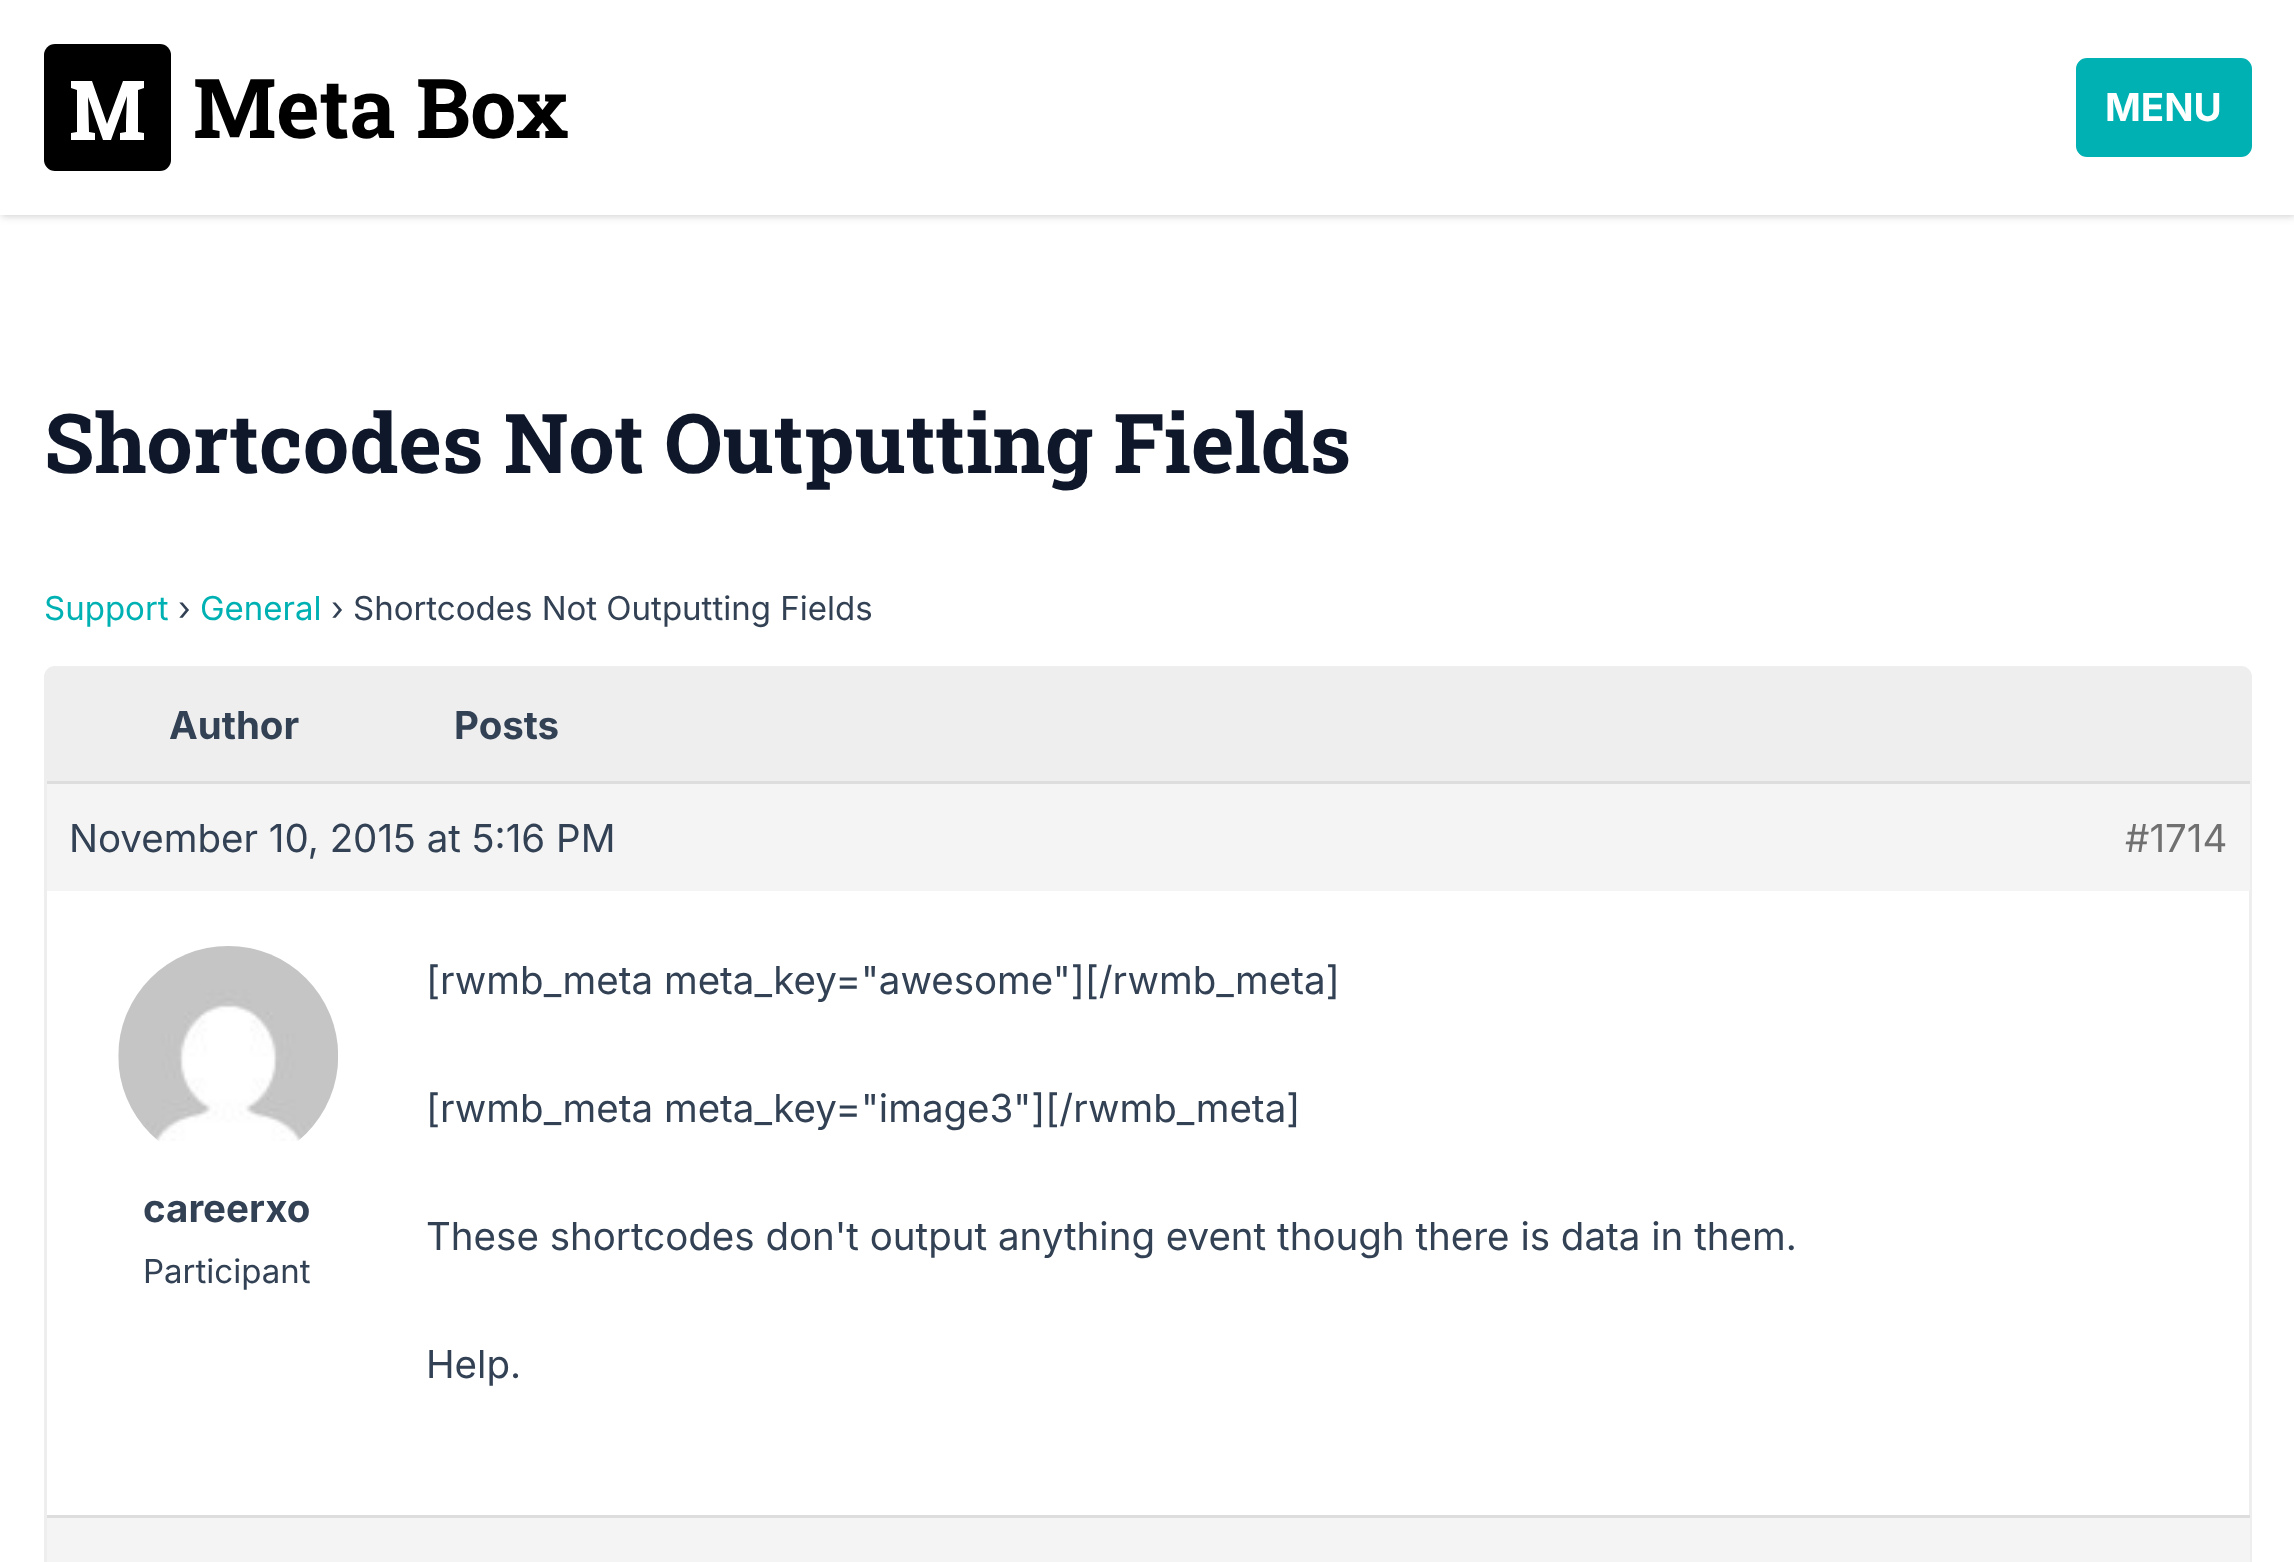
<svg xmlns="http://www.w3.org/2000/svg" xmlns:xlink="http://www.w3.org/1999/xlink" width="2294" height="1562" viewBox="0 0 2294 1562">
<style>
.cls-1{font:bold 82.5px Roboto Slab;fill:#000000}
.cls-2{font:bold 38.5px Inter;fill:#ffffff}
.cls-3{font:bold 82.5px Roboto Slab;fill:#0f172a}
.cls-4{font:33px Inter;fill:#00b1b3}
.cls-5{font:33px Inter;fill:#334155}
.cls-6{font:bold 38.5px Inter;fill:#334155}
.cls-7{font:38.5px Inter;fill:#334155}
.cls-8{font:38.5px Inter;fill:#707070}
</style>
<rect width="100%" height="100%" fill="#ffffff"/>
<rect fill="#000000" fill-opacity="0.1" filter="blur(3px)" x="3" y="6" width="2291" height="209"/>
<rect fill="#000000" fill-opacity="0.1" filter="blur(4px)" x="0" y="3" width="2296" height="214"/>
<rect fill="#ffffff" x="0" y="0" width="2294" height="215"/>
<rect fill="#000000" x="44" y="44" width="127" height="127" rx="11"/>
<path fill="#ffffff" d="M126 122L127 96L111 140H103L88 97L89 132L95 133V140H71V133L77 132V90L71 88V81H92L107 124L123 81H144V88L138 90V132L144 133V140H120V133L126 132Z"/>
<rect fill="#00b1b3" stroke="#00b1b3" stroke-width="3" x="2077.5" y="59.5" width="173" height="96" rx="9.5"/>
<rect fill="none" stroke="#eeeeee" stroke-width="3" x="45.5" y="667.5" width="2205" height="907" rx="9.5"/>
<path fill="#eeeeee" d="M55 668H2242C2246.5 668 2250 671.5 2250 676V781H47V676C47 671.5 50.5 668 55 668Z"/>
<rect fill="#f4f4f4" x="47" y="784" width="2203" height="107"/>
<rect fill="#dddddd" x="47" y="781" width="2203" height="3"/>
<image xlink:href="image0.png" x="118" y="946" width="220" height="195"/>
<rect fill="#f4f4f4" x="47" y="1518" width="2203" height="44"/>
<rect fill="#dddddd" x="47" y="1515" width="2203" height="3"/>
<text class="cls-1" x="193" y="138">Meta Box</text>
<text class="cls-2" x="2105" y="121">MENU</text>
<text class="cls-3" x="44" y="473">Shortcodes Not Outputting Fields</text>
<text class="cls-4" x="44" y="620">Support</text>
<text class="cls-5" x="178" y="620">›</text>
<text class="cls-4" x="200" y="620">General</text>
<text class="cls-5" x="331" y="620">› Shortcodes Not Outputting Fields</text>
<text class="cls-6" x="169" y="739">Author</text>
<text class="cls-6" x="454" y="739">Posts</text>
<text class="cls-7" x="69" y="852">November 10, 2015 at 5:16 PM</text>
<text class="cls-8" x="2125" y="852">#1714</text>
<text class="cls-6" x="143" y="1222">careerxo</text>
<text class="cls-5" x="143" y="1283">Participant</text>
<text class="cls-7" x="426" y="994">[rwmb_meta meta_key="awesome"][/rwmb_meta]</text>
<text class="cls-7" x="426" y="1122">[rwmb_meta meta_key="image3"][/rwmb_meta]</text>
<text class="cls-7" x="426" y="1250">These shortcodes don't output anything event though there is data in them.</text>
<text class="cls-7" x="426" y="1378">Help.</text>
</svg>
